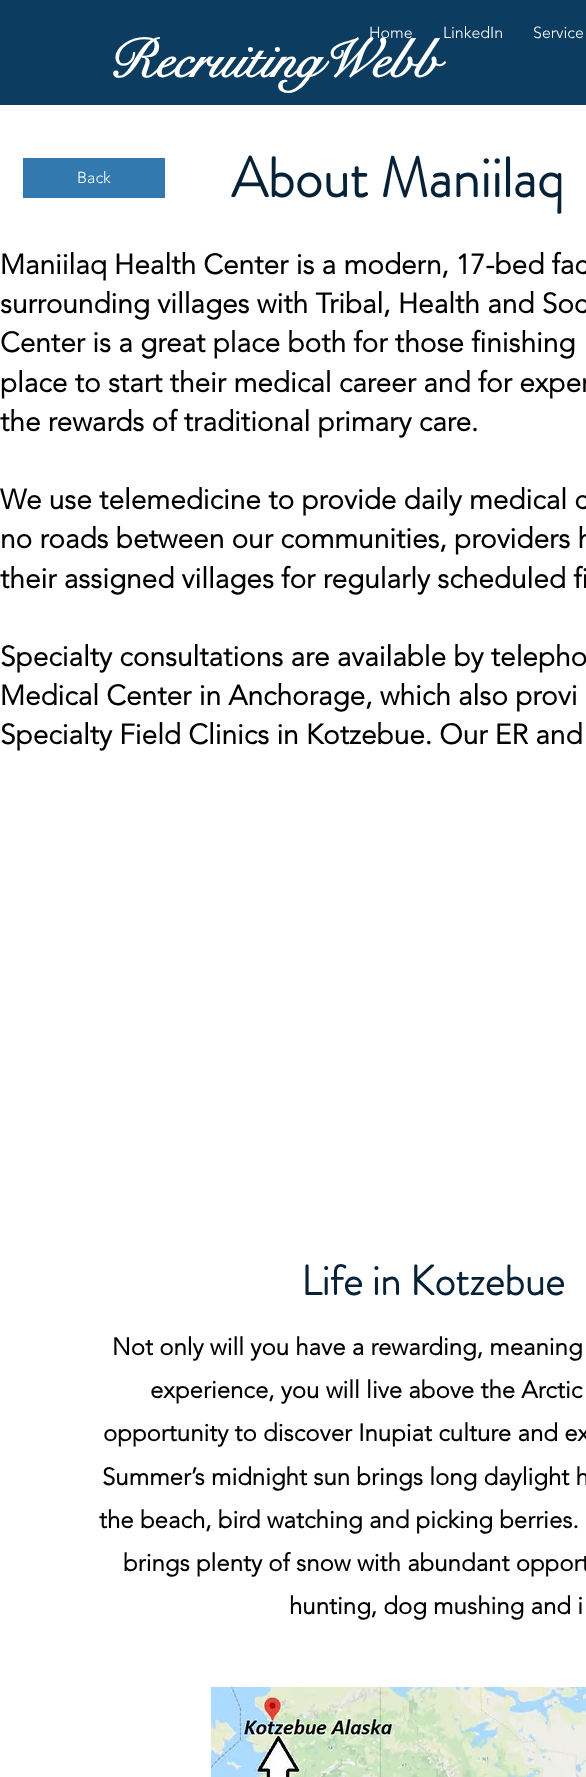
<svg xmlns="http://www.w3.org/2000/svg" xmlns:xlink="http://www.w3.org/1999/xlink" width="586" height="1777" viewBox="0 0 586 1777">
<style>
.cls-1{font:300 16px 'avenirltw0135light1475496';fill:#ffffff}
.cls-2{font:bold 54px 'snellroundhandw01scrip';fill:#ffffff}
.cls-3{font:bold 56px 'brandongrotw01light';fill:#072136}
.cls-4{font:bold 28px 'avenirltw0135light1475496';fill:#000000}
.cls-5{font:bold 42px 'brandongrotw01light';fill:#072136}
.cls-6{font:bold 24px 'avenirltw0135light1475496';fill:#000000}
</style>
<rect width="100%" height="100%" fill="#ffffff"/>
<rect fill="#0c3c60" x="0" y="0" width="586" height="105"/>
<rect fill="#3179af" x="23" y="158" width="142" height="40"/>
<image xlink:href="image0.png" x="211" y="1687" width="375" height="90"/>
<text class="cls-1" x="369" y="38">Home</text>
<text class="cls-1" x="443" y="38">LinkedIn</text>
<text class="cls-1" x="533" y="38">Service</text>
<text class="cls-2" x="108" y="77">RecruitingWebb</text>
<text class="cls-1" x="77" y="183">Back</text>
<text class="cls-3" x="231" y="197">About Maniilaq</text>
<text class="cls-4"><tspan x="0" y="274">Maniilaq Health Center is a modern, 17-bed fac</tspan><tspan x="0" y="313">surrounding villages with Tribal, Health and Soc</tspan><tspan x="0" y="352">Center is a great place both for those finishing</tspan><tspan x="0" y="392">place to start their medical career and for exper</tspan><tspan x="0" y="431">the rewards of traditional primary care.</tspan></text>
<text class="cls-4"><tspan x="0" y="509">We use telemedicine to provide daily medical c</tspan><tspan x="0" y="548">no roads between our communities, providers h</tspan><tspan x="0" y="588">their assigned villages for regularly scheduled fi</tspan></text>
<text class="cls-4"><tspan x="0" y="666">Specialty consultations are available by telepho</tspan><tspan x="0" y="705">Medical Center in Anchorage, which also provi</tspan><tspan x="0" y="744">Specialty Field Clinics in Kotzebue. Our ER and</tspan></text>
<text class="cls-5" x="301" y="1295">Life in Kotzebue</text>
<text class="cls-6" x="112" y="1355">Not only will you have a rewarding, meaning</text>
<text class="cls-6" x="150" y="1398">experience, you will live above the Arctic</text>
<text class="cls-6" x="103" y="1441">opportunity to discover Inupiat culture and ex</text>
<text class="cls-6" x="102" y="1485">Summer’s midnight sun brings long daylight h</text>
<text class="cls-6" x="99" y="1528">the beach, bird watching and picking berries.</text>
<text class="cls-6" x="123" y="1571">brings plenty of snow with abundant opport</text>
<text class="cls-6" x="289" y="1614">hunting, dog mushing and i</text>
</svg>
